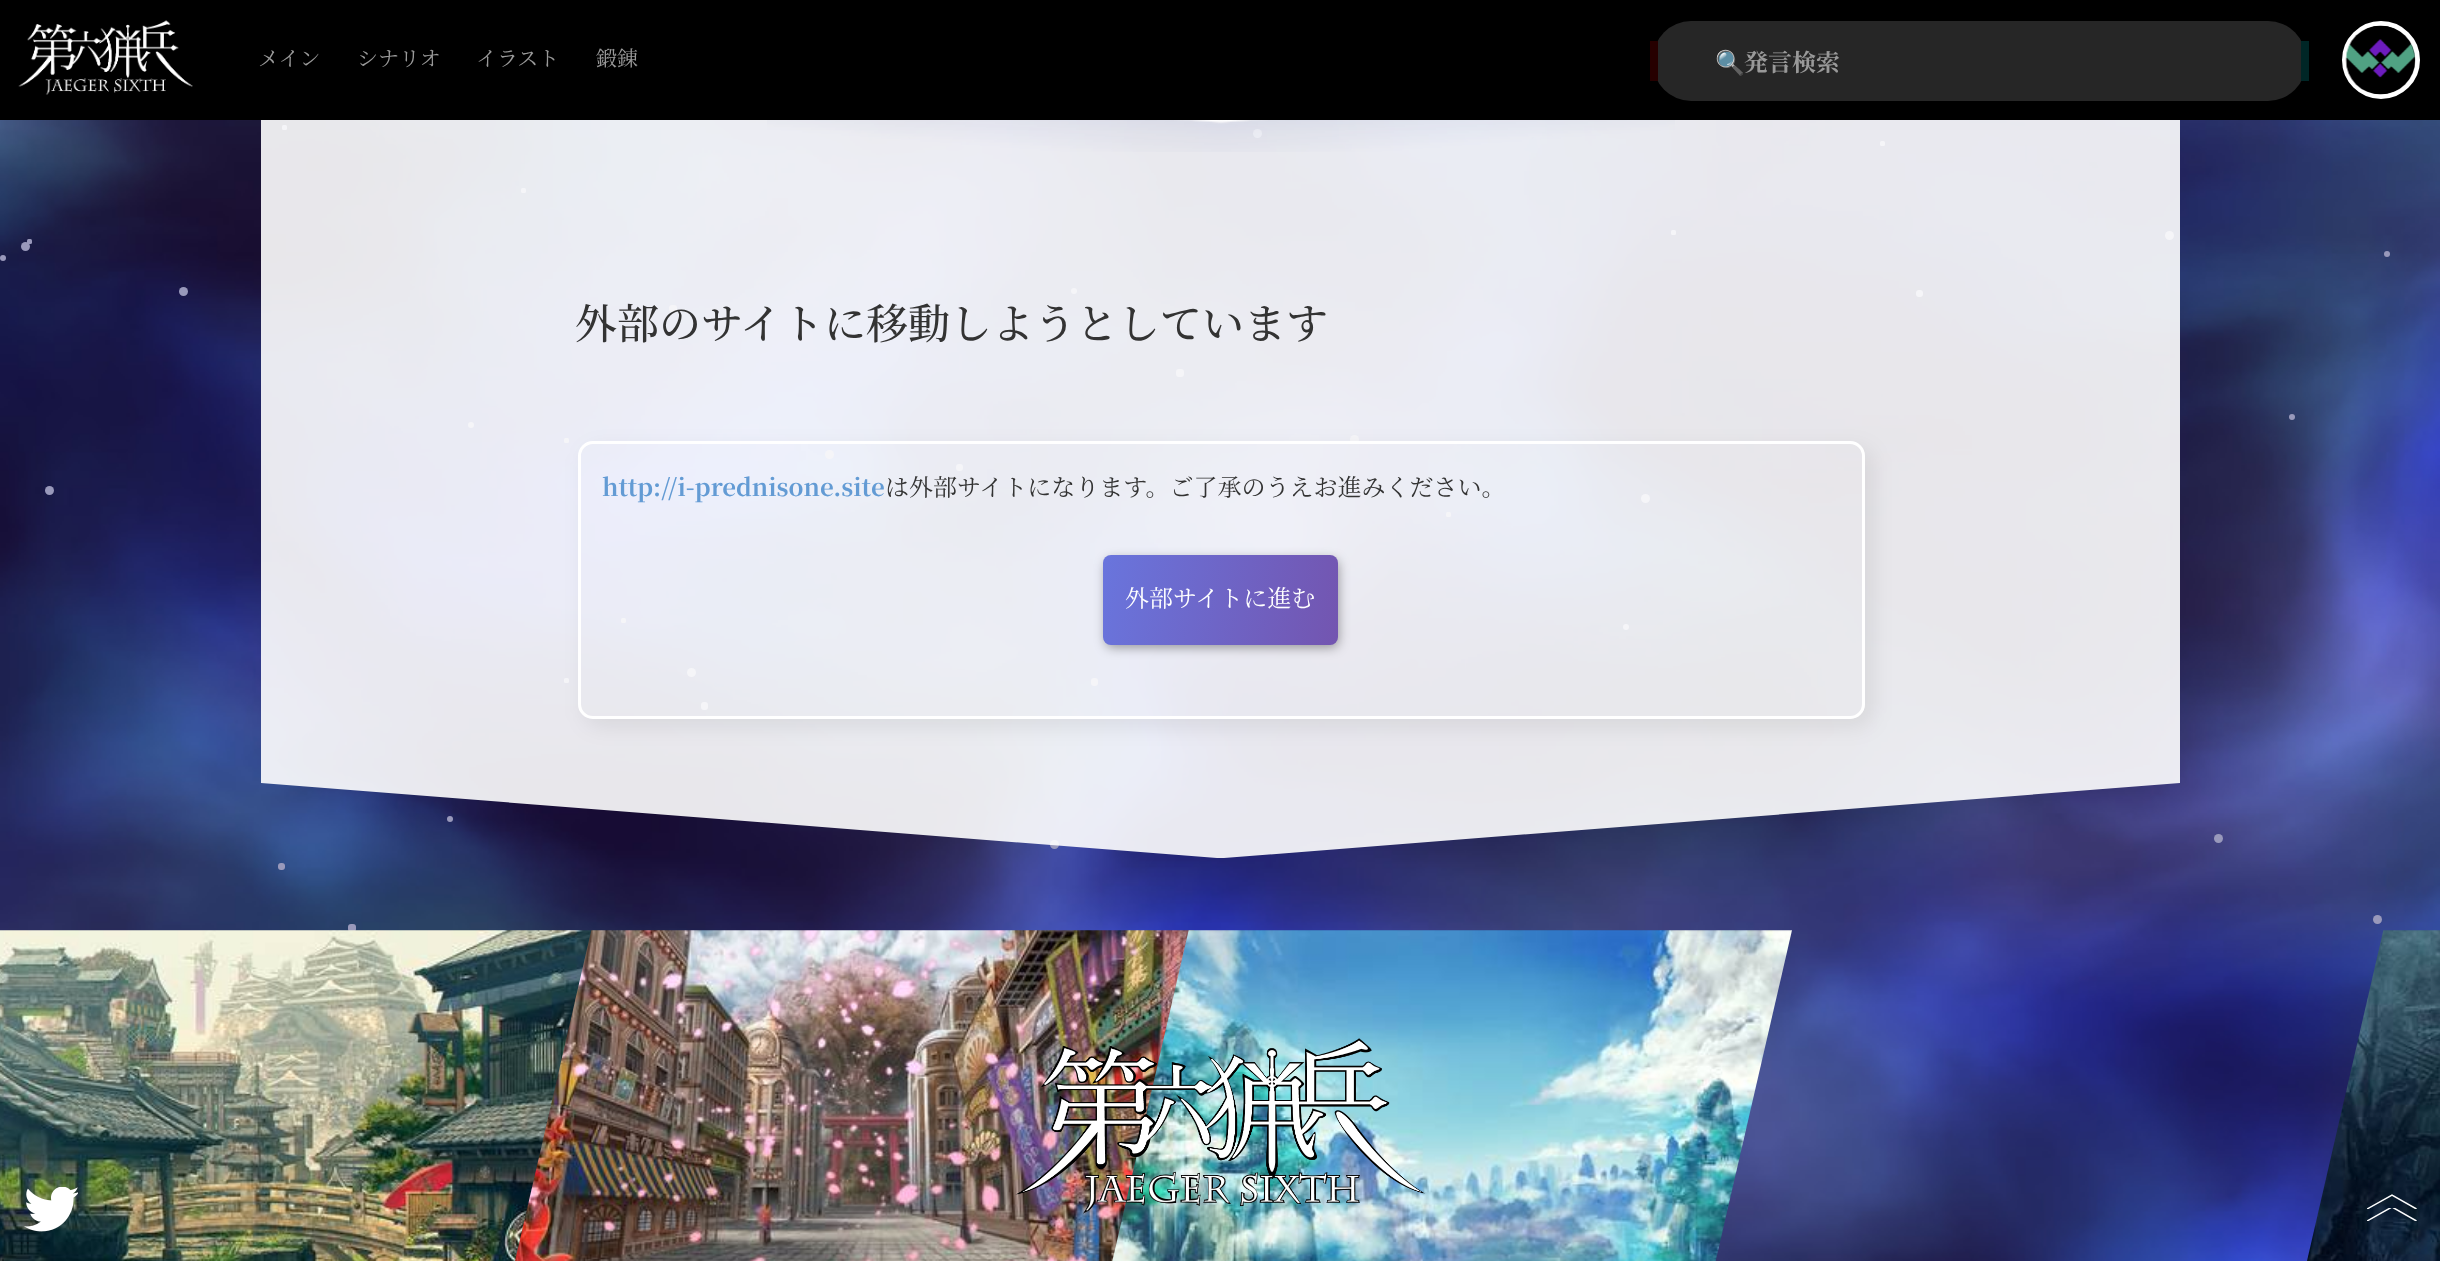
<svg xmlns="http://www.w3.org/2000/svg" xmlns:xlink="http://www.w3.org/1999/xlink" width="2440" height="1261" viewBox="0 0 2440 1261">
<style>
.cls-1{font:21px Noto Serif JP;fill:#999999}
.cls-2{font:bold 24px Noto Color Emoji;fill:#999999}
.cls-3{font:bold 24px Noto Serif JP;fill:#999999}
.cls-4{font:500 42px Noto Serif JP;fill:#333333}
.cls-5{font:bold 24px Noto Serif JP;fill:#639bd4}
.cls-6{font:24px Noto Serif JP;fill:#333333}
.cls-7{font:24px Noto Serif JP;fill:#ffffff}
</style>
<defs>
<clipPath id="clip1"><path d="M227 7H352V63H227ZM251 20H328C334 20 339 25 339 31V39C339 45 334 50 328 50H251C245 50 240 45 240 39V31C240 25 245 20 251 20Z" clip-rule="evenodd"/></clipPath>
<clipPath id="clip2"><path d="M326 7H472V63H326ZM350 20H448C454 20 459 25 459 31V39C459 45 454 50 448 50H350C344 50 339 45 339 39V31C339 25 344 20 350 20Z" clip-rule="evenodd"/></clipPath>
<clipPath id="clip3"><path d="M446 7H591V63H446ZM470 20H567C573 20 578 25 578 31V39C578 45 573 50 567 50H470C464 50 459 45 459 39V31C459 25 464 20 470 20Z" clip-rule="evenodd"/></clipPath>
<clipPath id="clip4"><path d="M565 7H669V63H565ZM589 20H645C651 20 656 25 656 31V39C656 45 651 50 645 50H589C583 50 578 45 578 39V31C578 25 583 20 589 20Z" clip-rule="evenodd"/></clipPath>
<clipPath id="clip5"><path d="M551 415H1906V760H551ZM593 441H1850C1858.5 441 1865 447.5 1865 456V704C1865 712.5 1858.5 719 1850 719H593C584.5 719 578 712.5 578 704V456C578 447.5 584.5 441 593 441Z" clip-rule="evenodd"/></clipPath>
<linearGradient id="g1" gradientUnits="userSpaceOnUse" x1="1098" y1="579" x2="1342" y2="621"><stop offset="0" stop-color="#6975dd"/><stop offset="1" stop-color="#7355b0"/></linearGradient>
<clipPath id="clip6"><rect x="2367" y="1208" width="50" height="13"/></clipPath>
<clipPath id="clip7"><rect x="2367" y="1194" width="50" height="15"/></clipPath>
<clipPath id="clip8"><rect x="1715" y="44" width="529" height="34"/></clipPath>
</defs>
<rect width="100%" height="100%" fill="#ffffff"/>
<image xlink:href="image2.png" x="0" y="120" width="2440" height="1141"/>
<rect fill="#9999bb" x="282" y="125" width="5" height="5" rx="1.5"/>
<circle fill="#9999bb" cx="1257.5" cy="133.5" r="4.5"/>
<rect fill="#9999bb" x="1880" y="141" width="5" height="5" rx="1.5"/>
<rect fill="#9999bb" x="521" y="188" width="5" height="5" rx="1.5"/>
<rect fill="#9999bb" x="1671" y="230" width="5" height="5" rx="1.5"/>
<circle fill="#9999bb" cx="2169.5" cy="235.5" r="4.5"/>
<circle fill="#9999bb" cx="1074" cy="291" r="3"/>
<rect fill="#9999bb" x="1916" y="290" width="7" height="7" rx="3"/>
<rect fill="#9999bb" x="669" y="305" width="8" height="7" rx="3"/>
<rect fill="#9999bb" x="1176" y="369" width="8" height="8" rx="3"/>
<circle fill="#9999bb" cx="471" cy="425" r="3"/>
<rect fill="#9999bb" x="564" y="438" width="5" height="5" rx="1.5"/>
<circle fill="#9999bb" cx="1354.5" cy="439.5" r="4.5"/>
<circle fill="#9999bb" cx="829.5" cy="454.5" r="4.5"/>
<rect fill="#9999bb" x="956" y="464" width="7" height="7" rx="3"/>
<circle fill="#9999bb" cx="1645.5" cy="498.5" r="4.5"/>
<rect fill="#9999bb" x="1446" y="512" width="5" height="5" rx="1.5"/>
<rect fill="#9999bb" x="621" y="618" width="5" height="5" rx="1.5"/>
<circle fill="#9999bb" cx="1626" cy="627" r="3"/>
<circle fill="#9999bb" cx="691.5" cy="672.5" r="4.5"/>
<rect fill="#9999bb" x="564" y="678" width="5" height="5" rx="1.5"/>
<rect fill="#9999bb" x="1091" y="678" width="7" height="8" rx="3"/>
<rect fill="#9999bb" x="701" y="702" width="7" height="8" rx="3"/>
<circle fill="#9999bb" cx="450" cy="819" r="3"/>
<circle fill="#9999bb" cx="1054.5" cy="844.5" r="4.5"/>
<path fill="#ffffff" fill-opacity="0.9" d="M1217 858L261 783V45L1220 120L2180 45V783L1224 858Z"/>
<rect fill="#000000" x="0" y="0" width="2440" height="120"/>
<image xlink:href="image0.png" x="18" y="20" width="175" height="75"/>
<g clip-path="url(#clip1)">
<rect fill="#000000" fill-opacity="0.2" filter="blur(4px)" x="240" y="20" width="99" height="30" rx="11"/>
</g>
<g clip-path="url(#clip2)">
<rect fill="#000000" fill-opacity="0.2" filter="blur(4px)" x="339" y="20" width="120" height="30" rx="11"/>
</g>
<g clip-path="url(#clip3)">
<rect fill="#000000" fill-opacity="0.2" filter="blur(4px)" x="459" y="20" width="119" height="30" rx="11"/>
</g>
<g clip-path="url(#clip4)">
<rect fill="#000000" fill-opacity="0.2" filter="blur(4px)" x="578" y="20" width="78" height="30" rx="11"/>
</g>
<rect fill="#262626" x="1653" y="21" width="653" height="80" rx="38"/>
<rect fill="#260000" x="1650" y="41" width="8" height="40"/>
<rect fill="#002626" x="2301" y="41" width="8" height="40"/>
<circle fill="none" stroke="#ffffff" stroke-width="5" cx="2381" cy="60" r="36.5"/>
<image xlink:href="image1.png" x="2345" y="25" width="71" height="70"/>
<rect fill="#9999bb" x="27" y="239" width="5" height="5" rx="1.5"/>
<circle fill="#9999bb" cx="25.5" cy="246.5" r="4.5"/>
<circle fill="#9999bb" cx="2387" cy="254" r="3"/>
<circle fill="#9999bb" cx="3" cy="258" r="3"/>
<circle fill="#9999bb" cx="183.5" cy="291.5" r="4.5"/>
<circle fill="#9999bb" cx="2292" cy="417" r="3"/>
<circle fill="#9999bb" cx="49.5" cy="490.5" r="4.5"/>
<circle fill="#9999bb" cx="2218.5" cy="838.5" r="4.5"/>
<rect fill="#9999bb" x="278" y="863" width="7" height="7" rx="3"/>
<circle fill="#9999bb" cx="2377.5" cy="919.5" r="4.5"/>
<rect fill="#9999bb" x="348" y="924" width="8" height="8" rx="3"/>
<image xlink:href="image3.png" x="767" y="120" width="908" height="32"/>
<g clip-path="url(#clip5)">
<rect fill="#000000" fill-opacity="0.08" filter="blur(11px)" x="585" y="449" width="1287" height="277" rx="15"/>
</g>
<rect fill="none" stroke="#ffffff" stroke-width="3" x="579.5" y="442.5" width="1284" height="275" rx="13.5"/>
<rect fill="#000000" fill-opacity="0.4" filter="blur(6px)" x="1106" y="560" width="232" height="87" rx="6"/>
<rect fill="url(#g1)" x="1103" y="555" width="235" height="90" rx="8"/>
<image xlink:href="image4.png" x="0" y="930" width="597" height="331"/>
<image xlink:href="image5.png" x="515" y="930" width="679" height="331"/>
<image xlink:href="image6.png" x="1112" y="930" width="680" height="331"/>
<image xlink:href="image7.png" x="2307" y="930" width="133" height="331"/>
<image xlink:href="image8.png" x="1015" y="1038" width="410" height="176"/>
<image xlink:href="image9.png" x="24" y="1187" width="54" height="45"/>
<g clip-path="url(#clip6)">
<path fill="none" stroke="#ffffff" stroke-width="1.5" d="M2367 1221L2392 1207L2416.5 1221"/>
</g>
<g clip-path="url(#clip7)">
<path fill="none" stroke="#ffffff" stroke-width="1.5" d="M2367 1209L2392 1195L2416.5 1209"/>
</g>
<text class="cls-1" x="258" y="66">メイン</text>
<text class="cls-1" x="357" y="66">シナリオ</text>
<text class="cls-1" x="476" y="66">イラスト</text>
<text class="cls-1" x="596" y="66">鍛錬</text>
<g clip-path="url(#clip8)">
<text class="cls-2" x="1715" y="71">🔍</text>
</g>
<text class="cls-3" x="1744" y="71">発言検索</text>
<text class="cls-4" x="575" y="339">外部のサイトに移動しようとしています</text>
<text class="cls-5" x="602" y="496">http://i-prednisone.site</text>
<text class="cls-6" x="885" y="496">は外部サイトになります。ご了承のうえお進みください。</text>
<text class="cls-7" x="1125" y="607">外部サイトに進む</text>
</svg>
